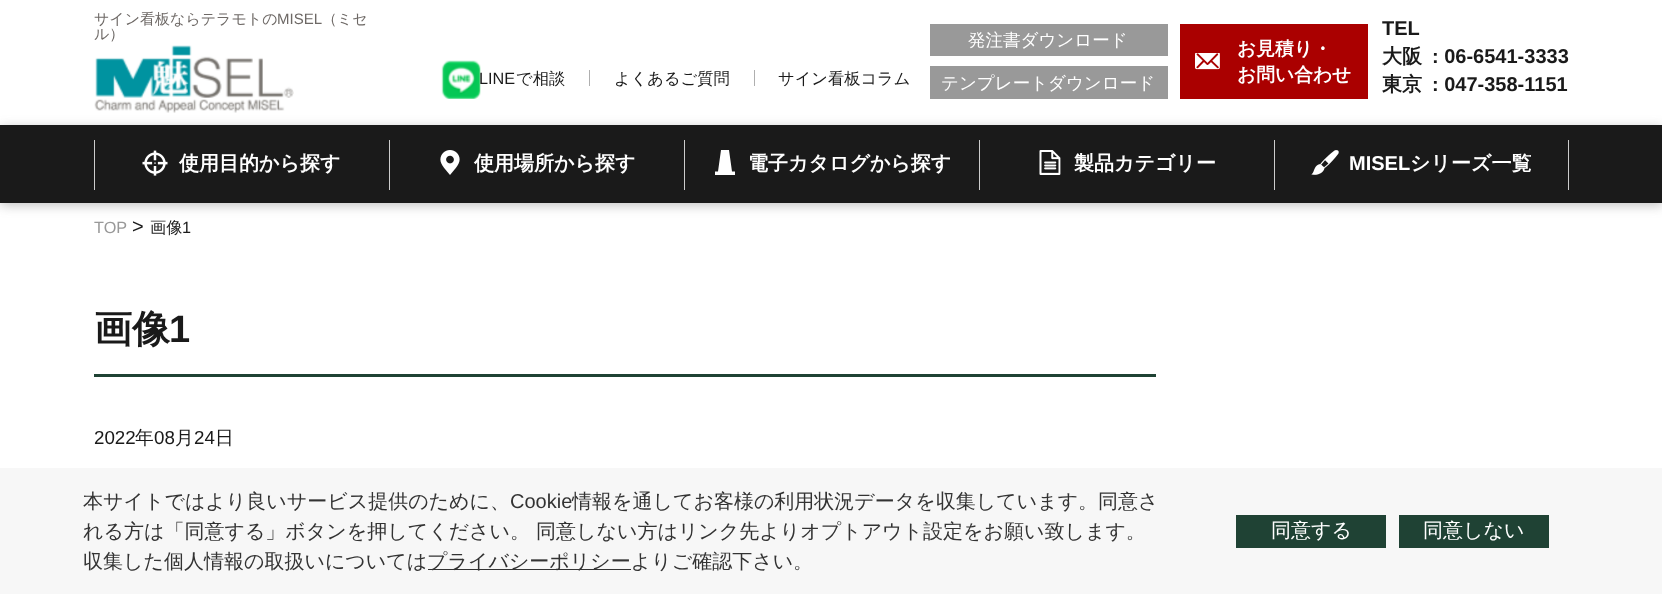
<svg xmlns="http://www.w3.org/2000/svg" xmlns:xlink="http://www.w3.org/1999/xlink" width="1662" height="594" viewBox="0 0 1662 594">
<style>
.cls-1{font:500 15px WenQuanYi Zen Hei;fill:#6e6966}
.cls-2{font:15px Liberation Sans;fill:#6e6966}
.cls-3{font:16.25px Liberation Sans;fill:#1a1a1a}
.cls-4{font:500 16.25px WenQuanYi Zen Hei;fill:#1a1a1a}
.cls-5{font:500 17.5px WenQuanYi Zen Hei;fill:#ffffff}
.cls-6{font:bold 18.75px WenQuanYi Zen Hei;fill:#ffffff}
.cls-7{font:bold 20px Liberation Sans;fill:#1a1a1a}
.cls-8{font:bold 20px WenQuanYi Zen Hei;fill:#1a1a1a}
.cls-9{font:bold 20px WenQuanYi Zen Hei;fill:#ffffff}
.cls-10{font:bold 20px Liberation Sans;fill:#ffffff}
.cls-11{font:16.25px Liberation Sans;fill:#999999}
.cls-12{font:20px Liberation Sans;fill:#1a1a1a}
.cls-13{font:bold 38px WenQuanYi Zen Hei;fill:#1a1a1a}
.cls-14{font:bold 38px Liberation Sans;fill:#1a1a1a}
.cls-15{font:18.75px Liberation Sans;fill:#1a1a1a}
.cls-16{font:500 18.75px WenQuanYi Zen Hei;fill:#1a1a1a}
.cls-17{font:500 20px WenQuanYi Zen Hei;fill:#333333}
.cls-18{font:20px Liberation Sans;fill:#333333}
.cls-19{font:500 20px WenQuanYi Zen Hei;fill:#ffffff}
</style>
<rect width="100%" height="100%" fill="#ffffff"/>
<image xlink:href="image0.png" x="94" y="45" width="200" height="68"/>
<image xlink:href="image1.png" x="441" y="60" width="40" height="39"/>
<rect fill="#afafaf" x="589" y="70" width="1" height="16"/>
<rect fill="#afafaf" x="754" y="70" width="1" height="16"/>
<rect fill="#999999" x="930" y="24" width="238" height="32"/>
<rect fill="#999999" x="930" y="66" width="238" height="33"/>
<rect fill="#aa0000" x="1180" y="24" width="188" height="75"/>
<image xlink:href="image2.png" x="1195" y="53" width="25" height="17"/>
<rect fill="#606060" fill-opacity="0.4" filter="blur(6px)" x="0" y="128" width="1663" height="77"/>
<rect fill="#1a1a1a" x="0" y="125" width="1662" height="78"/>
<rect fill="#cccccc" x="94" y="140" width="1" height="50"/>
<image xlink:href="image3.png" x="142" y="150" width="26" height="26"/>
<rect fill="#cccccc" x="389" y="140" width="1" height="50"/>
<image xlink:href="image4.png" x="440" y="150" width="20" height="25"/>
<rect fill="#cccccc" x="684" y="140" width="1" height="50"/>
<path fill="#ffffff" d="M732 171.5L729 150H721L718 171.5H715V175H735V171.5Z"/>
<rect fill="#cccccc" x="979" y="140" width="1" height="50"/>
<image xlink:href="image5.png" x="1039" y="150" width="22" height="25"/>
<rect fill="#cccccc" x="1274" y="140" width="1" height="50"/>
<image xlink:href="image6.png" x="1311" y="150" width="28" height="25"/>
<rect fill="#cccccc" x="1568" y="140" width="1" height="50"/>
<rect fill="#1f4234" x="94" y="374" width="1062" height="3"/>
<rect fill="#f7f7f7" x="0" y="468" width="1662" height="126"/>
<rect fill="#333333" x="428" y="569" width="203" height="1"/>
<rect fill="#1f4234" x="1236" y="515" width="150" height="33"/>
<rect fill="#1f4234" x="1399" y="515" width="150" height="33"/>
<text class="cls-1" x="94" y="24">サイン看板ならテラモトの</text>
<text class="cls-2" x="277" y="24">MISEL</text>
<text class="cls-1" x="322" y="24">（ミセ</text>
<text class="cls-1" x="94" y="39">ル）</text>
<text class="cls-3" x="479" y="84">LINE</text>
<text class="cls-4" x="516" y="84">で相談</text>
<text class="cls-4" x="614" y="84">よくあるご質問</text>
<text class="cls-4" x="778" y="84">サイン看板コラム</text>
<text class="cls-5" x="968" y="46">発注書ダウンロード</text>
<text class="cls-5" x="941" y="89">テンプレートダウンロード</text>
<text class="cls-6"><tspan x="1237" y="55">お見積り・</tspan><tspan x="1237" y="81">お問い合わせ</tspan></text>
<text class="cls-7" x="1382" y="35">TEL</text>
<text class="cls-8" x="1382" y="63">大阪</text>
<text class="cls-7" x="1432" y="63">: 06-6541-3333</text>
<text class="cls-8" x="1382" y="91">東京</text>
<text class="cls-7" x="1432" y="91">: 047-358-1151</text>
<text class="cls-9" x="179" y="170">使用目的から探す</text>
<text class="cls-9" x="474" y="170">使用場所から探す</text>
<text class="cls-9" x="748" y="170">電子カタログから探す</text>
<text class="cls-9" x="1074" y="170">製品カテゴリー</text>
<text class="cls-10" x="1349" y="170">MISEL</text>
<text class="cls-9" x="1410" y="170">シリーズ一覧</text>
<text class="cls-11" x="94" y="233">TOP</text>
<text class="cls-12" x="132" y="233">&gt;</text>
<text class="cls-4" x="150" y="233">画像</text>
<text class="cls-3" x="182" y="233">1</text>
<text class="cls-13" x="94" y="342">画像</text>
<text class="cls-14" x="169" y="342">1</text>
<text class="cls-15" x="94" y="444">2022</text>
<text class="cls-16" x="135" y="444">年</text>
<text class="cls-15" x="154" y="444">08</text>
<text class="cls-16" x="175" y="444">月</text>
<text class="cls-15" x="194" y="444">24</text>
<text class="cls-16" x="215" y="444">日</text>
<text class="cls-17" x="83" y="508">本サイトではより良いサービス提供のために、</text>
<text class="cls-18" x="510" y="508">Cookie</text>
<text class="cls-17" x="572" y="508">情報を通してお客様の利用状況データを収集しています。同意さ</text>
<text class="cls-17" x="83" y="538">れる方は「同意する」ボタンを押してください。</text>
<text class="cls-17" x="536" y="538">同意しない方はリンク先よりオプトアウト設定をお願い致します。</text>
<text class="cls-17" x="83" y="568">収集した個人情報の取扱いについては</text>
<text class="cls-17" x="427" y="568">プライバシーポリシーよりご確認下さい。</text>
<text class="cls-19" x="1271" y="537">同意する</text>
<text class="cls-19" x="1423" y="537">同意しない</text>
</svg>
